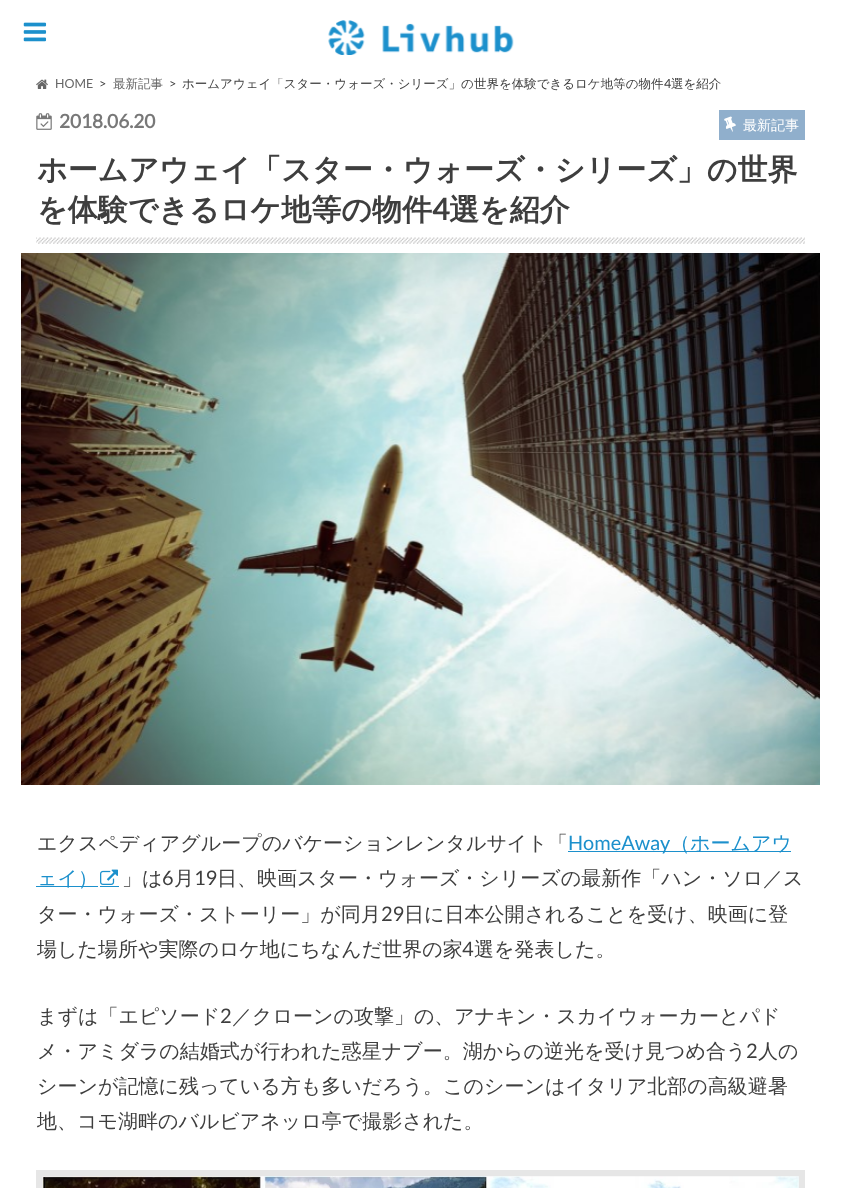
<svg xmlns="http://www.w3.org/2000/svg" xmlns:xlink="http://www.w3.org/1999/xlink" width="841" height="1188" viewBox="0 0 841 1188">
<style>
.cls-1{font:12.5px Lato;fill:#666666}
.cls-2{font:12.5px Lato;fill:#3e3e3e}
.cls-3{font:500 12.5px WenQuanYi Zen Hei;fill:#666666}
.cls-4{font:500 12.5px WenQuanYi Zen Hei;fill:#3e3e3e}
.cls-5{font:bold 19px Lato;fill:#787878}
.cls-6{font:500 14px WenQuanYi Zen Hei;fill:#ffffff}
.cls-7{font:bold 30px WenQuanYi Zen Hei;fill:#3e3e3e}
.cls-8{font:bold 30px Lato;fill:#3e3e3e}
.cls-9{font:500 20px WenQuanYi Zen Hei;fill:#3e3e3e}
.cls-10{font:20px Lato;fill:#1c90cc}
.cls-11{font:500 20px WenQuanYi Zen Hei;fill:#1c90cc}
.cls-12{font:20px Lato;fill:#3e3e3e}
</style>
<rect width="100%" height="100%" fill="#ffffff"/>
<image xlink:href="image0.png" x="23" y="22" width="24" height="20"/>
<image xlink:href="image1.png" x="328" y="20" width="186" height="35"/>
<image xlink:href="image2.png" x="36" y="79" width="12" height="10"/>
<image xlink:href="image3.png" x="36" y="113" width="16" height="17"/>
<rect fill="#90afcc" x="719" y="110" width="86" height="30"/>
<image xlink:href="image4.png" x="724" y="116" width="12" height="16"/>
<image xlink:href="image5.png" x="36" y="237" width="769" height="7"/>
<image xlink:href="image6.png" x="21" y="253" width="799" height="532"/>
<rect fill="#1c90cc" x="568" y="851" width="223" height="1"/>
<rect fill="#1c90cc" x="36" y="886" width="62" height="1"/>
<rect fill="#1c90cc" x="100" y="886" width="19" height="1"/>
<image xlink:href="image7.png" x="100" y="869" width="18" height="16"/>
<rect fill="#e6e6e6" x="36" y="1170" width="769" height="18"/>
<image xlink:href="image8.png" x="42" y="1176" width="757" height="12"/>
<text class="cls-1" x="55" y="88">HOME</text>
<text class="cls-2" x="99" y="88">&gt;</text>
<text class="cls-3" x="113" y="88">最新記事</text>
<text class="cls-2" x="169" y="88">&gt;</text>
<text class="cls-4" x="182" y="88">ホームアウェイ「スター・ウォーズ・シリーズ」の世界を体験できるロケ地等の物件</text>
<text class="cls-2" x="664" y="88">4</text>
<text class="cls-4" x="671" y="88">選を紹介</text>
<text class="cls-5" x="59" y="128">2018.06.20</text>
<text class="cls-6" x="743" y="130">最新記事</text>
<text class="cls-7"><tspan x="37" y="180">ホームアウェイ「スター・ウォーズ・シリーズ」の世界</tspan><tspan x="37" y="220">を体験できるロケ地等の物件</tspan></text>
<text class="cls-8" x="432" y="220">4</text>
<text class="cls-7" x="449" y="220">選を紹介</text>
<text class="cls-9" x="37" y="850">エクスペディアグループのバケーションレンタルサイト「</text>
<text class="cls-10" x="568" y="850">HomeAway</text>
<text class="cls-11" x="670" y="850">（ホームアウ</text>
<text class="cls-11" x="37" y="885">ェイ）</text>
<text class="cls-9" x="122" y="885">」は</text>
<text class="cls-12" x="162" y="885">6</text>
<text class="cls-9" x="174" y="885">月</text>
<text class="cls-12" x="194" y="885">19</text>
<text class="cls-9" x="217" y="885">日、映画スター・ウォーズ・シリーズの最新作「ハン・ソロ／ス</text>
<text class="cls-9" x="37" y="921">ター・ウォーズ・ストーリー」が同月</text>
<text class="cls-12" x="381" y="921">29</text>
<text class="cls-9" x="404" y="921">日に日本公開されることを受け、映画に登</text>
<text class="cls-9" x="37" y="956">場した場所や実際のロケ地にちなんだ世界の家</text>
<text class="cls-12" x="462" y="956">4</text>
<text class="cls-9" x="474" y="956">選を発表した。</text>
<text class="cls-9" x="37" y="1023">まずは「エピソード</text>
<text class="cls-12" x="220" y="1023">2</text>
<text class="cls-9" x="232" y="1023">／クローンの攻撃」の、アナキン・スカイウォーカーとパド</text>
<text class="cls-9" x="37" y="1058">メ・アミダラの結婚式が行われた惑星ナブー。湖からの逆光を受け見つめ合う</text>
<text class="cls-12" x="746" y="1058">2</text>
<text class="cls-9" x="758" y="1058">人の</text>
<text class="cls-9"><tspan x="37" y="1093">シーンが記憶に残っている方も多いだろう。このシーンはイタリア北部の高級避暑</tspan><tspan x="37" y="1128">地、コモ湖畔のバルビアネッロ亭で撮影された。</tspan></text>
</svg>
